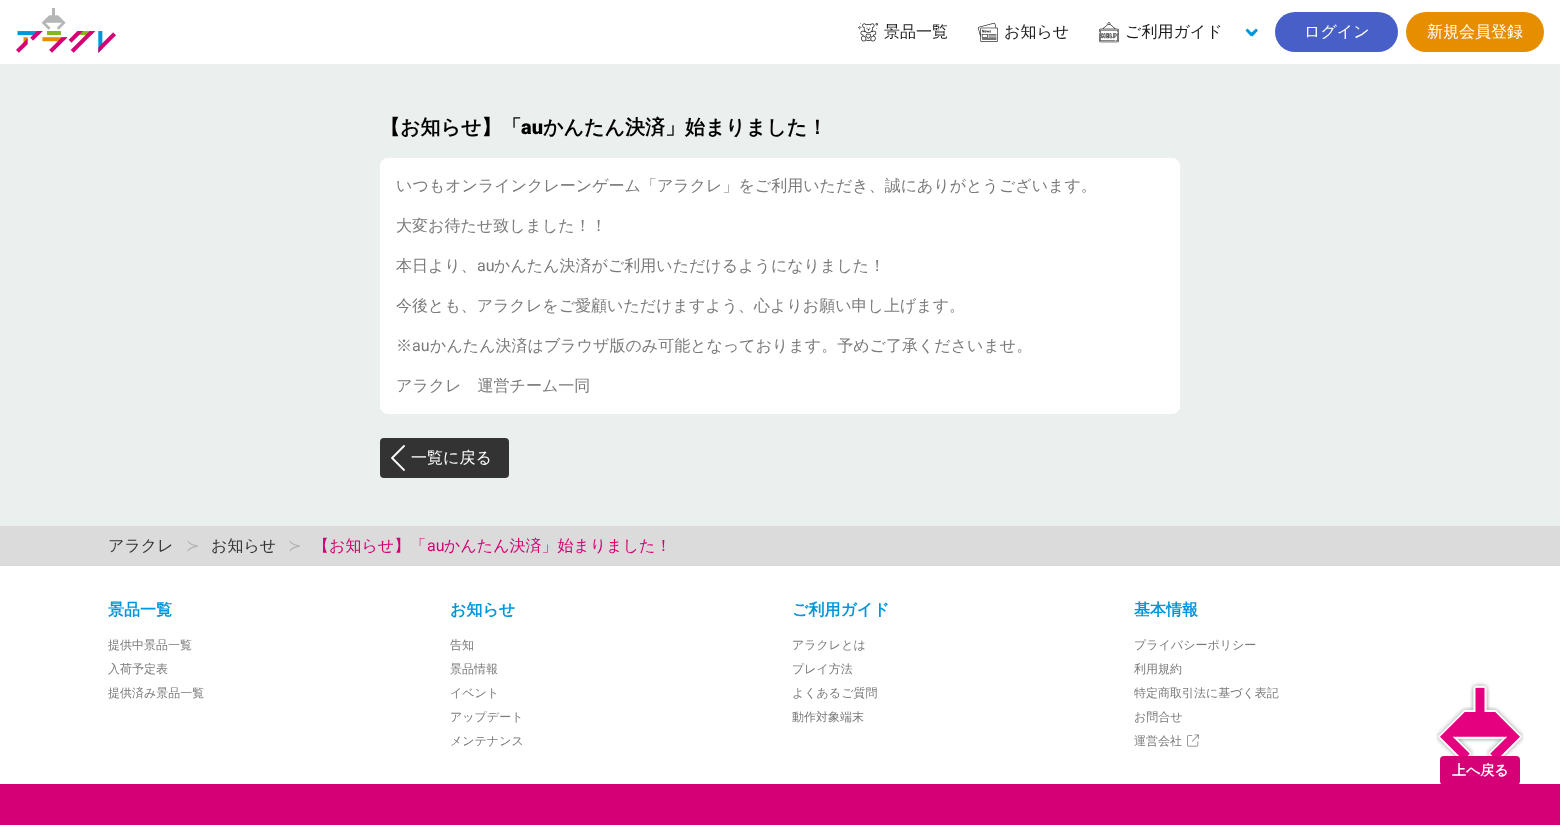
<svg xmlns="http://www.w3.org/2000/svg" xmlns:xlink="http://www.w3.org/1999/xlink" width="1560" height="825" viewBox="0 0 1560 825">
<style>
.cls-1{font:500 16px WenQuanYi Zen Hei;fill:#1a1a1a}
.cls-2{font:500 16px WenQuanYi Zen Hei;fill:#ffffff}
.cls-3{font:bold 20px WenQuanYi Zen Hei;fill:#000000}
.cls-4{font:900 20px Roboto;fill:#000000}
.cls-5{font:500 16px WenQuanYi Zen Hei;fill:#7a7a7a}
.cls-6{font:16px Roboto;fill:#7a7a7a}
.cls-7{font:500 16px WenQuanYi Zen Hei;fill:#333333}
.cls-8{font:16px DejaVu Sans;fill:#b5b5b5}
.cls-9{font:500 16px WenQuanYi Zen Hei;fill:#d60076}
.cls-10{font:16px Roboto;fill:#d60076}
.cls-11{font:bold 16px WenQuanYi Zen Hei;fill:#0096db}
.cls-12{font:500 12px WenQuanYi Zen Hei;fill:#7a7a7a}
.cls-13{font:bold 14px WenQuanYi Zen Hei;fill:#ffffff}
</style>
<rect width="100%" height="100%" fill="#ebefee"/>
<rect fill="#ffffff" x="0" y="0" width="1560" height="64"/>
<image xlink:href="image0.png" x="16" y="8" width="100" height="45"/>
<image xlink:href="image1.png" x="858" y="22" width="20" height="20"/>
<image xlink:href="image2.png" x="978" y="22" width="20" height="20"/>
<image xlink:href="image3.png" x="1099" y="22" width="20" height="21"/>
<path fill="#0096db" d="M1250 34L1256 28.5L1258 30.5L1252.5 36.5Z"/>
<path fill="#0096db" d="M1245.5 30.5L1247.5 28.5L1253 34L1251 36.5Z"/>
<rect fill="#485fc7" x="1275" y="12" width="123" height="40" rx="20"/>
<rect fill="#e68e00" x="1406" y="12" width="138" height="40" rx="20"/>
<rect fill="#ffffff" x="380" y="158" width="800" height="256" rx="8"/>
<rect fill="#333333" x="380" y="438" width="129" height="40" rx="4"/>
<image xlink:href="image4.png" x="391" y="445" width="14" height="26"/>
<rect fill="#dbdbdb" x="0" y="526" width="1560" height="40"/>
<rect fill="#ffffff" x="0" y="566" width="1560" height="218"/>
<image xlink:href="image5.png" x="1187" y="734" width="12" height="13"/>
<image xlink:href="image6.png" x="1436" y="682" width="88" height="74"/>
<rect fill="#d60076" x="0" y="784" width="1560" height="41"/>
<rect fill="#d60076" x="1440" y="756" width="80" height="29" rx="4"/>
<text class="cls-1" x="884" y="37">景品一覧</text>
<text class="cls-1" x="1004" y="37">お知らせ</text>
<text class="cls-1" x="1125" y="37">ご利用ガイド</text>
<text class="cls-2" x="1304" y="37">ログイン</text>
<text class="cls-2" x="1427" y="37">新規会員登録</text>
<text class="cls-3" x="380" y="134">【お知らせ】「</text>
<text class="cls-4" x="521" y="134">au</text>
<text class="cls-3" x="543" y="134">かんたん決済」始まりました！</text>
<text class="cls-5" x="396" y="191">いつもオンラインクレーンゲーム「アラクレ」をご利用いただき、誠にありがとうございます。</text>
<text class="cls-5" x="396" y="231">大変お待たせ致しました！！</text>
<text class="cls-5" x="396" y="271">本日より、</text>
<text class="cls-6" x="477" y="271">au</text>
<text class="cls-5" x="494" y="271">かんたん決済がご利用いただけるようになりました！</text>
<text class="cls-5" x="396" y="311">今後とも、アラクレをご愛顧いただけますよう、心よりお願い申し上げます。</text>
<text class="cls-5" x="396" y="351">※</text>
<text class="cls-6" x="412" y="351">au</text>
<text class="cls-5" x="430" y="351">かんたん決済はブラウザ版のみ可能となっております。予めご了承くださいませ。</text>
<text class="cls-5" x="396" y="391">アラクレ　運営チーム一同</text>
<text class="cls-2" x="411" y="463">一覧に戻る</text>
<text class="cls-7" x="108" y="551">アラクレ</text>
<text class="cls-8" x="186" y="551">≻</text>
<text class="cls-7" x="211" y="551">お知らせ</text>
<text class="cls-8" x="288" y="551">≻</text>
<text class="cls-9" x="313" y="551">【お知らせ】「</text>
<text class="cls-10" x="427" y="551">au</text>
<text class="cls-9" x="444" y="551">かんたん決済」始まりました！</text>
<text class="cls-11" x="108" y="615">景品一覧</text>
<text class="cls-12" x="108" y="649">提供中景品一覧</text>
<text class="cls-12" x="108" y="673">入荷予定表</text>
<text class="cls-12" x="108" y="697">提供済み景品一覧</text>
<text class="cls-11" x="450" y="615">お知らせ</text>
<text class="cls-12" x="450" y="649">告知</text>
<text class="cls-12" x="450" y="673">景品情報</text>
<text class="cls-12" x="450" y="697">イベント</text>
<text class="cls-12" x="450" y="721">アップデート</text>
<text class="cls-12" x="450" y="745">メンテナンス</text>
<text class="cls-11" x="792" y="615">ご利用ガイド</text>
<text class="cls-12" x="792" y="649">アラクレとは</text>
<text class="cls-12" x="792" y="673">プレイ方法</text>
<text class="cls-12" x="792" y="697">よくあるご質問</text>
<text class="cls-12" x="792" y="721">動作対象端末</text>
<text class="cls-11" x="1134" y="615">基本情報</text>
<text class="cls-12" x="1134" y="649">プライバシーポリシー</text>
<text class="cls-12" x="1134" y="673">利用規約</text>
<text class="cls-12" x="1134" y="697">特定商取引法に基づく表記</text>
<text class="cls-12" x="1134" y="721">お問合せ</text>
<text class="cls-12" x="1134" y="745">運営会社</text>
<text class="cls-13" x="1452" y="775">上へ戻る</text>
</svg>
